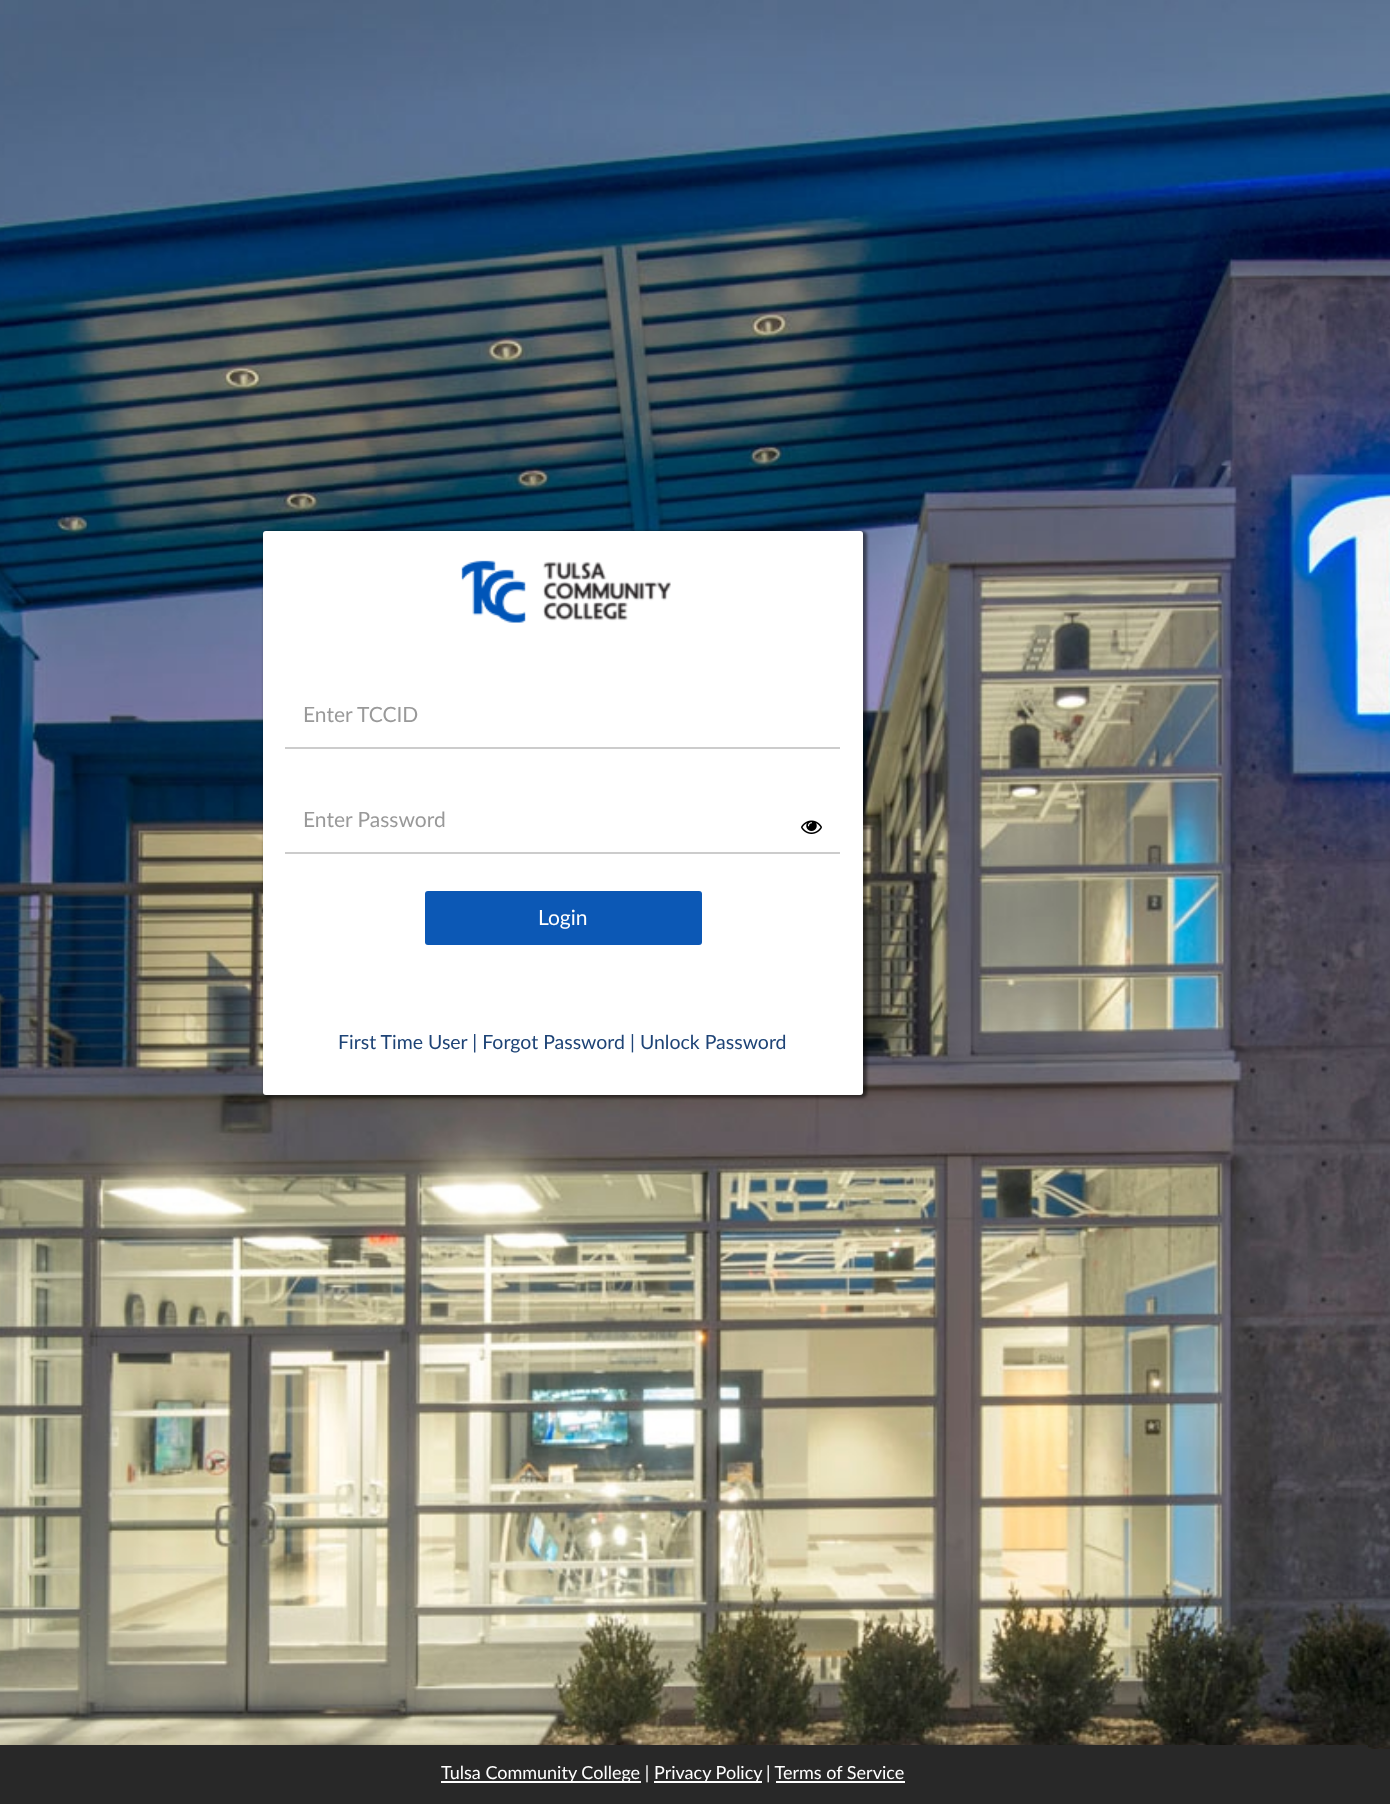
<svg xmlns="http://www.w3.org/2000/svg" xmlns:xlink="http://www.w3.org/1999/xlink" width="1390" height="1804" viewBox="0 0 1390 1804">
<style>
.cls-1{font:21px Lato;fill:#999999}
.cls-2{font:21px Lato;fill:#ffffff}
.cls-3{font:19.5px Lato;fill:#1d4376}
.cls-4{font:18px Lato;fill:#ffffff}
</style>
<rect width="100%" height="100%" fill="#ffffff"/>
<image xlink:href="image0.png" x="0" y="0" width="1390" height="1749"/>
<rect fill="#000000" fill-opacity="0.5" filter="blur(1.5px)" x="264" y="531" width="603" height="567" rx="5"/>
<rect fill="#ffffff" x="263" y="531" width="600" height="564" rx="3"/>
<image xlink:href="image1.png" x="461" y="560" width="210" height="63"/>
<rect fill="#cccccc" x="285" y="747" width="555" height="2"/>
<rect fill="#cccccc" x="285" y="852" width="555" height="2"/>
<image xlink:href="image2.png" x="801" y="820" width="21" height="14"/>
<rect fill="#0c58b5" x="425" y="891" width="277" height="54" rx="3"/>
<rect fill="#282828" x="1368" y="1749" width="22" height="55"/>
<rect fill="#282828" x="0" y="1745" width="1368" height="59"/>
<rect fill="#ffffff" x="441" y="1781" width="200" height="2"/>
<rect fill="#ffffff" x="654" y="1781" width="108" height="2"/>
<rect fill="#ffffff" x="776" y="1781" width="129" height="2"/>
<text class="cls-1" x="303" y="722">Enter TCCID</text>
<text class="cls-1" x="303" y="827">Enter Password</text>
<text class="cls-2" x="538" y="925">Login</text>
<text class="cls-3" x="338" y="1049">First Time User | Forgot Password</text>
<text class="cls-3" x="630" y="1049">| Unlock Password</text>
<text class="cls-4" x="441" y="1779">Tulsa Community College |</text>
<text class="cls-4" x="654" y="1779">Privacy Policy</text>
<text class="cls-4" x="766" y="1779">| Terms of Service</text>
</svg>
